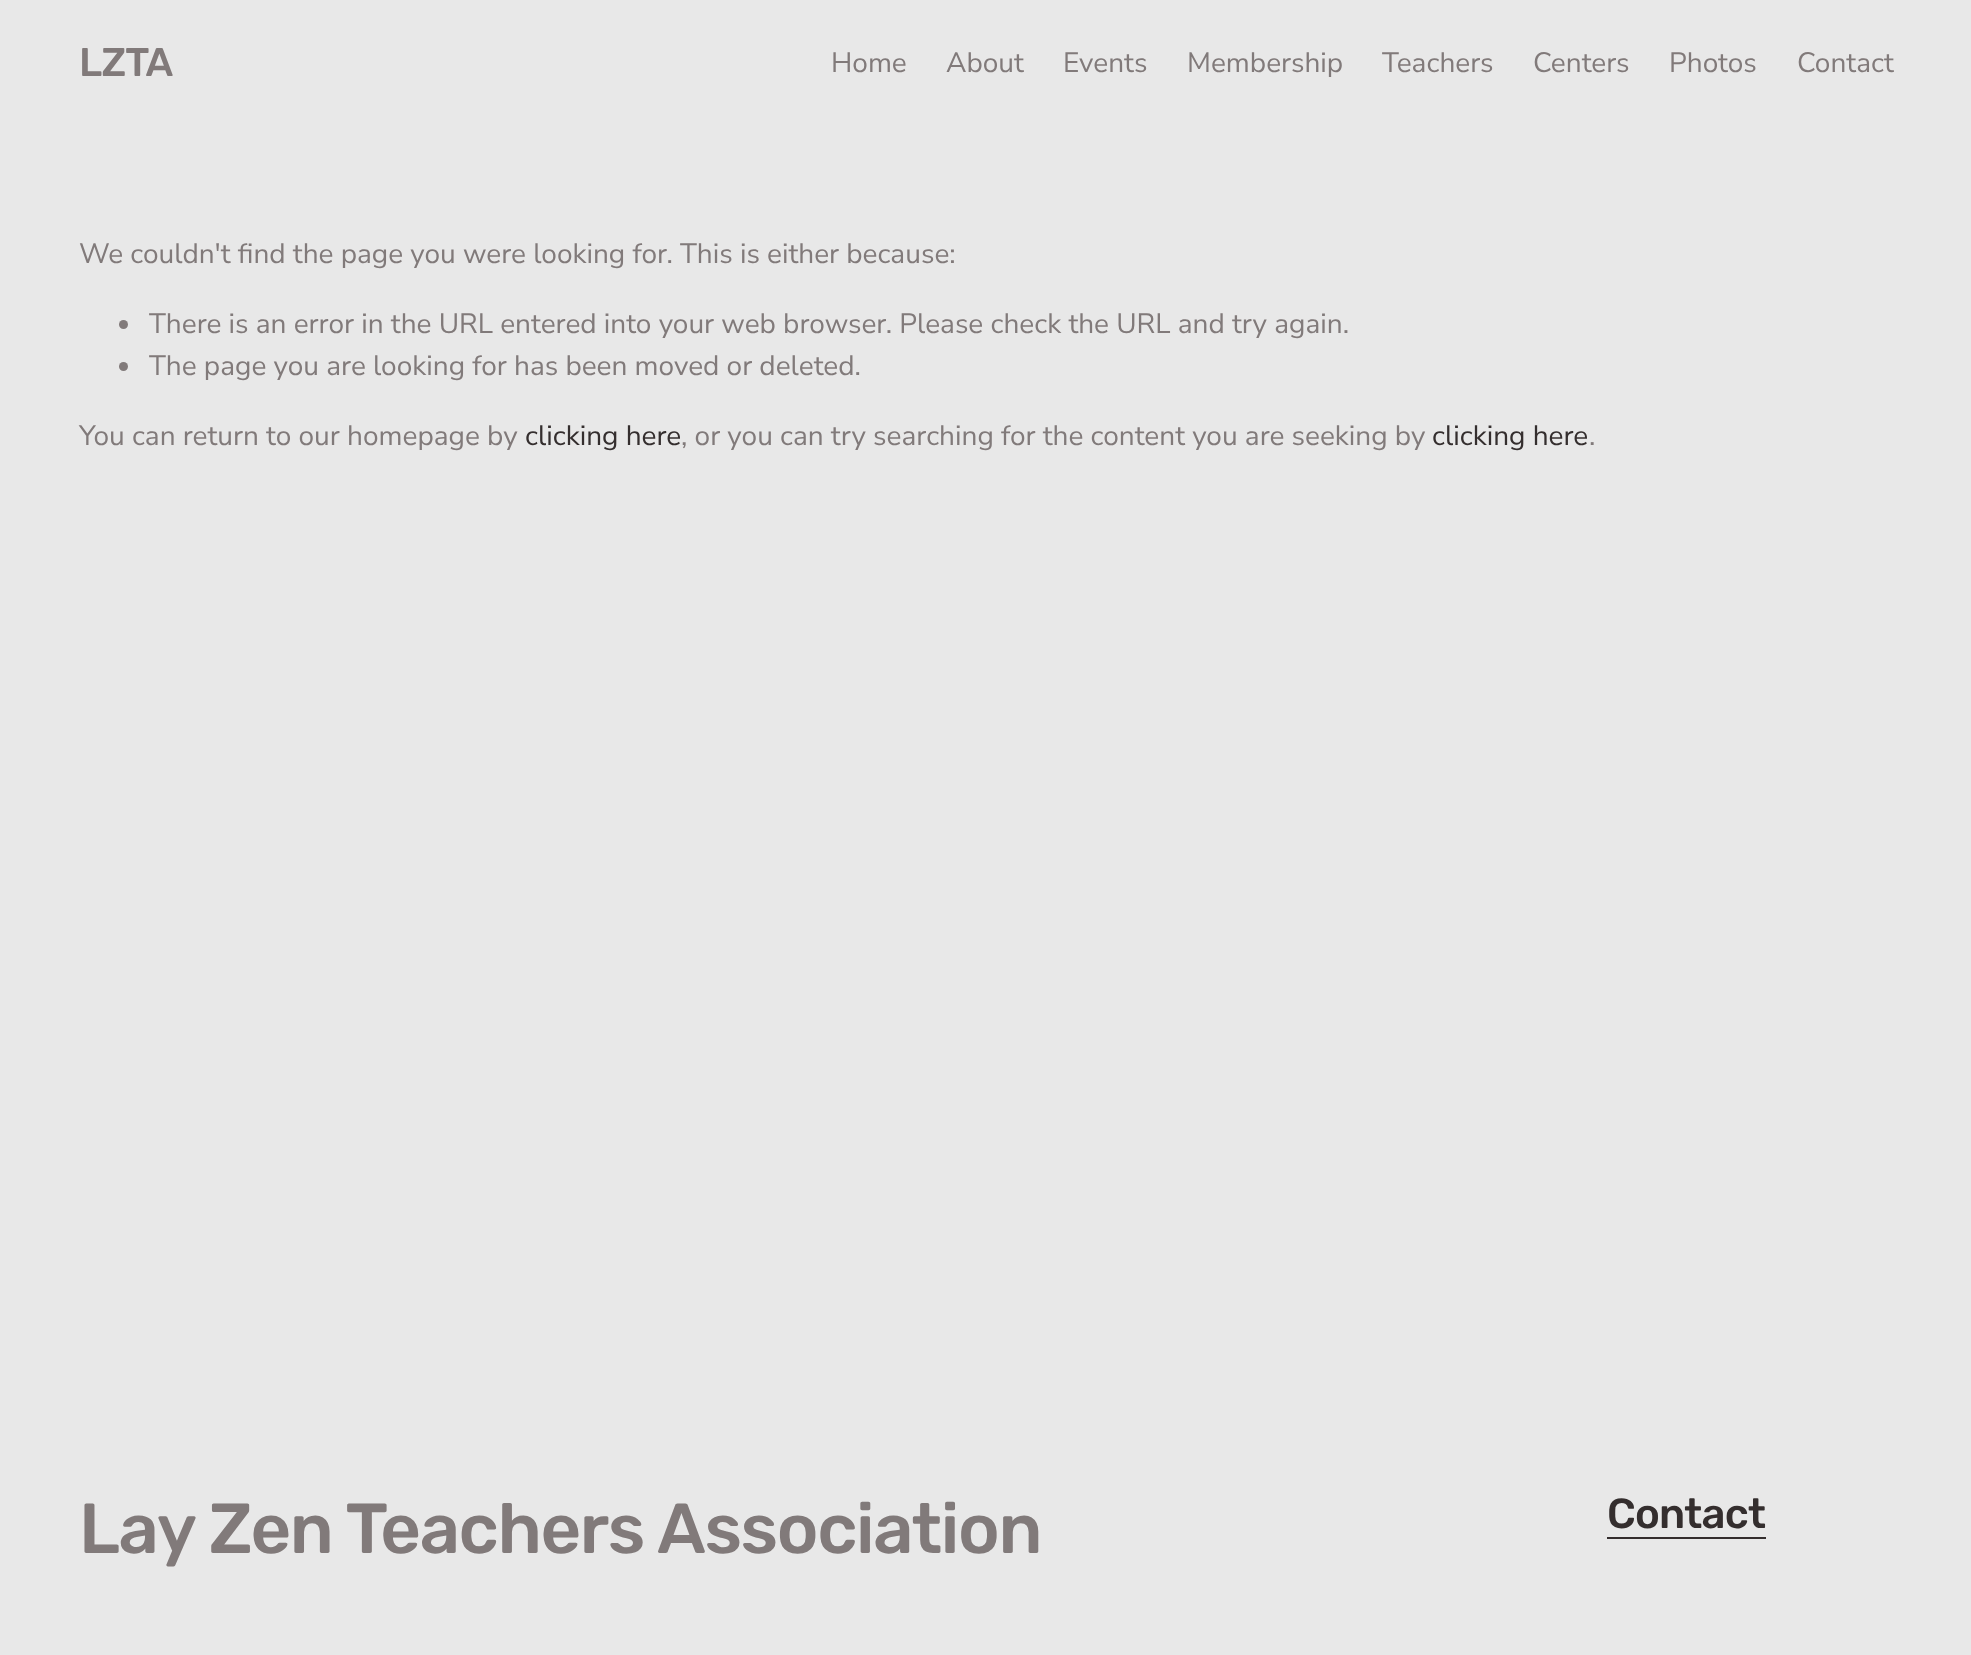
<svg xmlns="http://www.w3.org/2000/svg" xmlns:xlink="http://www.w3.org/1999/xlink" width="1971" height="1655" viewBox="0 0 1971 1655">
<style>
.cls-1{font:500 40px Rubik;letter-spacing:-1px;fill:#817a7a}
.cls-2{font:28px Nunito Sans;fill:#817a7a}
.cls-3{font:28px Nunito Sans;fill:#342e2e}
.cls-4{font:500 70.6px Rubik;letter-spacing:-1.4px;fill:#817a7a}
.cls-5{font:500 42px Rubik;letter-spacing:-0.75px;fill:#342e2e}
</style>
<rect width="100%" height="100%" fill="#e8e8e8"/>
<circle fill="#817a7a" cx="123.5" cy="324.5" r="4.5"/>
<circle fill="#817a7a" cx="123.5" cy="366.5" r="4.5"/>
<rect fill="#342e2e" x="1607" y="1537" width="159" height="2"/>
<text class="cls-1" x="79" y="76">LZTA</text>
<text class="cls-2" x="831" y="72">Home</text>
<text class="cls-2" x="946" y="72">About</text>
<text class="cls-2" x="1063" y="72">Events</text>
<text class="cls-2" x="1187" y="72">Membership</text>
<text class="cls-2" x="1382" y="72">Teachers</text>
<text class="cls-2" x="1533" y="72">Centers</text>
<text class="cls-2" x="1669" y="72">Photos</text>
<text class="cls-2" x="1797" y="72">Contact</text>
<text class="cls-2" x="79" y="263">We couldn't find the page you were looking for. This is either because:</text>
<text class="cls-2"><tspan x="149" y="333">There is an error in the URL entered into your web browser. Please check the URL and try again.</tspan><tspan x="149" y="375">The page you are looking for has been moved or deleted.</tspan></text>
<text class="cls-2" x="79" y="445">You can return to our homepage by</text>
<text class="cls-3" x="525" y="445">clicking here</text>
<text class="cls-2" x="681" y="445">, or you can try searching for the content you are seeking by</text>
<text class="cls-3" x="1432" y="445">clicking here</text>
<text class="cls-2" x="1589" y="445">.</text>
<text class="cls-4" x="79" y="1553">Lay Zen Teachers Association</text>
<text class="cls-5" x="1607" y="1528">Contact</text>
</svg>
